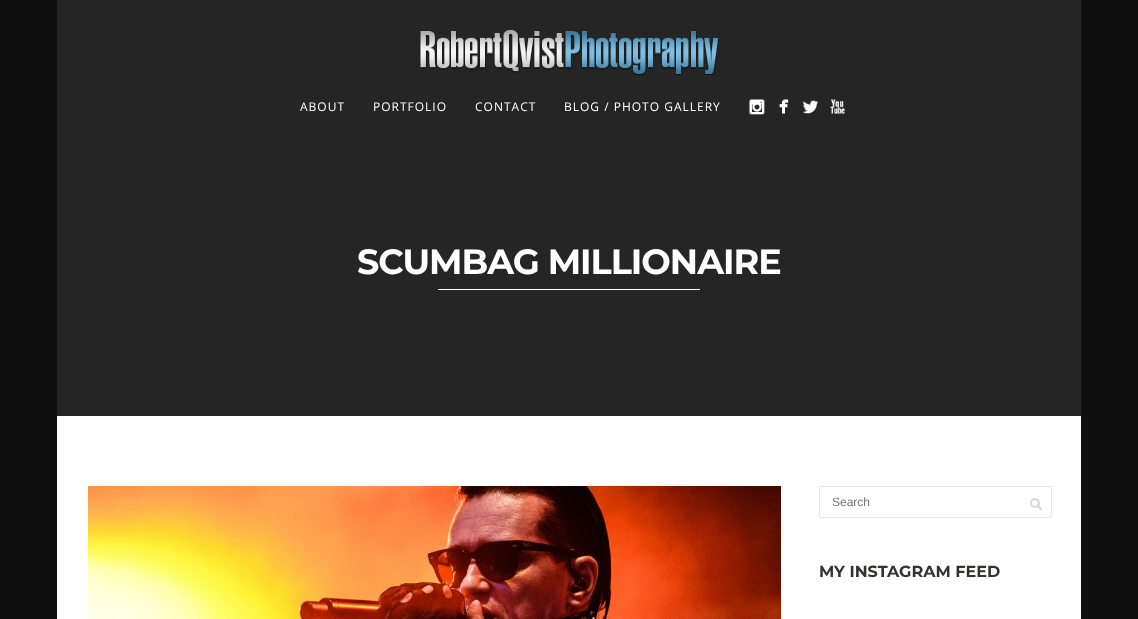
<svg xmlns="http://www.w3.org/2000/svg" xmlns:xlink="http://www.w3.org/1999/xlink" width="1138" height="619" viewBox="0 0 1138 619">
<style>
.cls-1{font:12px Open Sans;letter-spacing:1px;fill:#ffffff}
.cls-2{font:bold 35px Montserrat;letter-spacing:-1px;fill:#ffffff}
.cls-3{font:12px Liberation Sans;fill:#757575}
.cls-4{font:bold 16px Montserrat;fill:#333332}
</style>
<rect width="100%" height="100%" fill="#0f0f0f"/>
<rect fill="#ffffff" x="57" y="416" width="1024" height="203"/>
<rect fill="#252525" x="57" y="0" width="1024" height="416"/>
<image xlink:href="image0.png" x="419" y="30" width="300" height="45"/>
<image xlink:href="image1.png" x="749" y="99" width="16" height="16"/>
<image xlink:href="image2.png" x="779" y="99" width="10" height="15"/>
<image xlink:href="image3.png" x="802" y="100" width="17" height="14"/>
<image xlink:href="image4.png" x="830" y="99" width="15" height="15"/>
<rect fill="#ffffff" x="438" y="289" width="262" height="1"/>
<image xlink:href="image5.png" x="88" y="486" width="693" height="133"/>
<rect fill="none" stroke="#e6e6e6" x="819.5" y="486.5" width="232" height="31" rx="1.5"/>
<image xlink:href="image6.png" x="1030" y="498" width="12" height="12"/>
<text class="cls-1" x="300" y="111">ABOUT</text>
<text class="cls-1" x="373" y="111">PORTFOLIO</text>
<text class="cls-1" x="475" y="111">CONTACT</text>
<text class="cls-1" x="564" y="111">BLOG / PHOTO GALLERY</text>
<text class="cls-2" x="357" y="274">SCUMBAG MILLIONAIRE</text>
<text class="cls-3" x="832" y="506">Search</text>
<text class="cls-4" x="819" y="577">MY INSTAGRAM FEED</text>
</svg>
